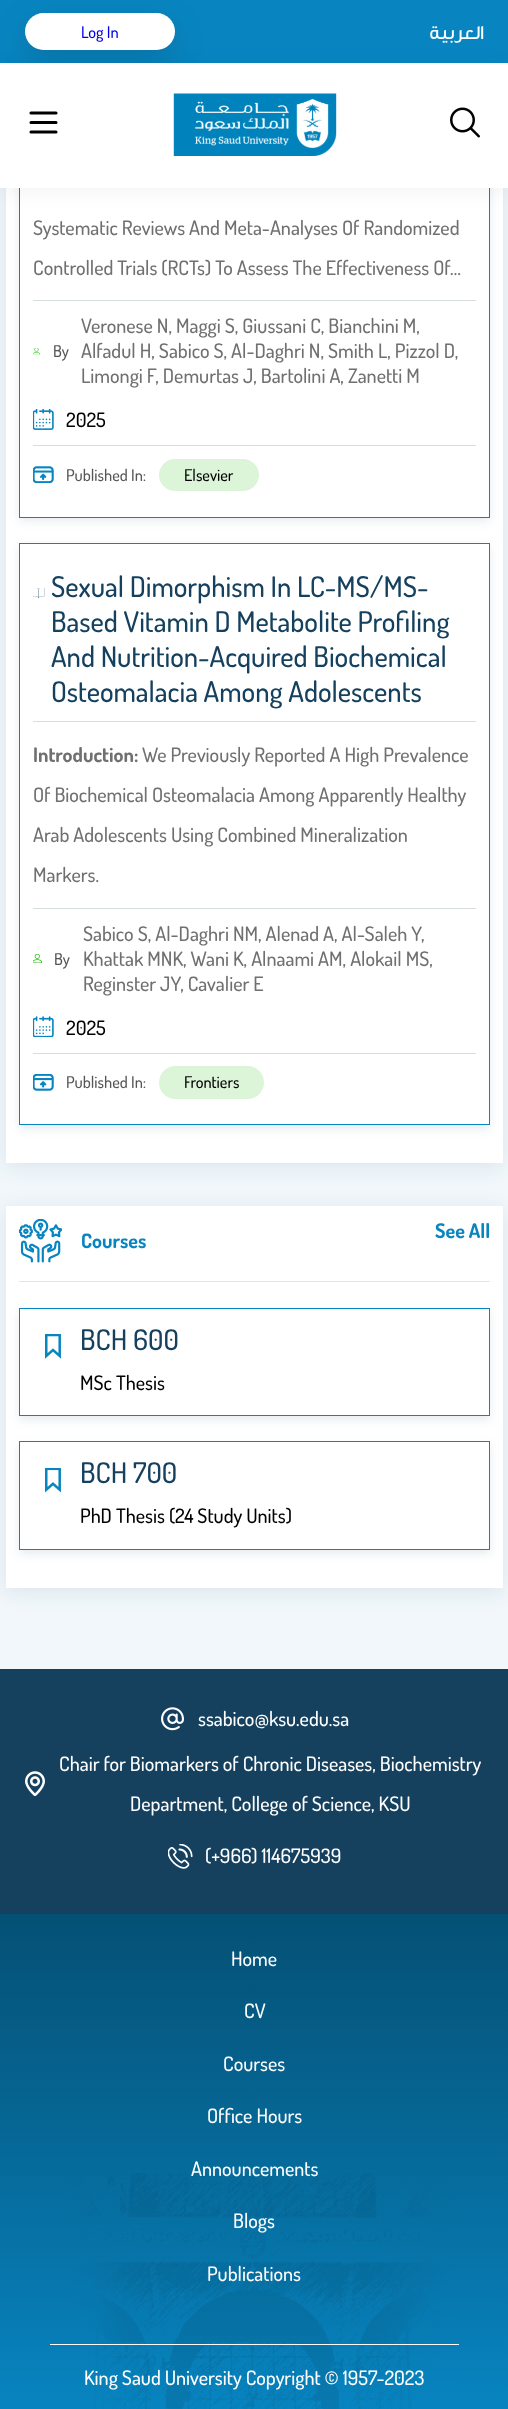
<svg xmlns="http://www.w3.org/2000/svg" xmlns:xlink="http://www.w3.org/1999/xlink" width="508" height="2409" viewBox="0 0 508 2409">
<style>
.cls-1{font:500 16.25px Dosis;fill:#0000ee}
.cls-2{font:500 20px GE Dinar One;direction:rtl;fill:#ffffff}
.cls-3{font:500 20px Dosis;fill:#707070}
.cls-4{font:500 16.25px Dosis;fill:#565656}
.cls-5{font:500 20px Dosis;fill:#000000}
.cls-6{font:500 16.25px Dosis;fill:#000000}
.cls-7{font:500 28.5px Dosis;fill:#15415f}
.cls-8{font:bold 20px Dosis;fill:#707070}
.cls-9{font:bold 20px Dosis;fill:#0885c1}
.cls-10{font:500 20px Dosis;fill:#ffffff}
</style>
<defs>
<clipPath id="clip1"><path d="M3 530H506V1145H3ZM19 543H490V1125H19Z" clip-rule="evenodd"/></clipPath>
<clipPath id="clip2"><path d="M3 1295H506V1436H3ZM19 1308H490V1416H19Z" clip-rule="evenodd"/></clipPath>
<clipPath id="clip3"><path d="M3 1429H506V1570H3ZM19 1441H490V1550H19Z" clip-rule="evenodd"/></clipPath>
</defs>
<rect width="100%" height="100%" fill="#f1f7fb"/>
<rect fill="#15415f" fill-opacity="0.1" filter="blur(10px)" x="6" y="-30" width="497" height="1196"/>
<rect fill="#ffffff" x="6" y="188" width="497" height="975"/>
<rect fill="#15415f" fill-opacity="0.1" filter="blur(5px)" x="19" y="-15" width="471" height="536"/>
<rect fill="#ffffff" x="20" y="188" width="469" height="329"/>
<rect fill="none" stroke="#0885c1" x="19.5" y="-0.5" width="470" height="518"/>
<rect fill="#0885c1" x="0" y="0" width="508" height="63"/>
<rect fill="#0e2a3d" fill-opacity="0.2" filter="blur(15px)" x="25" y="23" width="150" height="37" rx="18.5"/>
<rect fill="#ffffff" x="25" y="13" width="150" height="37" rx="18.5"/>
<rect fill="#000000" fill-opacity="0.05" filter="blur(10px)" x="0" y="66" width="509" height="125"/>
<rect fill="#ffffff" x="0" y="63" width="508" height="125"/>
<path fill="none" stroke="#000000" stroke-width="3.1" stroke-linecap="round" d="M31 132H56M31 122.5H56M31 113H56"/>
<image xlink:href="image0.png" x="173" y="93" width="164" height="63"/>
<image xlink:href="image1.png" x="450" y="107" width="30" height="31"/>
<rect fill="#d7dddf" x="33" y="300" width="443" height="1"/>
<rect fill="#d7dddf" x="33" y="445" width="443" height="1"/>
<image xlink:href="image2.png" x="33" y="348" width="7" height="7"/>
<image xlink:href="image3.png" x="33" y="409" width="21" height="21"/>
<image xlink:href="image4.png" x="33" y="466" width="21" height="17"/>
<rect fill="#dcf5d9" x="159" y="459" width="100" height="32" rx="16"/>
<g clip-path="url(#clip1)">
<rect fill="#15415f" fill-opacity="0.1" filter="blur(5px)" x="19" y="546" width="471" height="583"/>
</g>
<rect fill="none" stroke="#0885c1" x="19.5" y="543.5" width="470" height="581"/>
<rect fill="#d7dddf" x="33" y="721" width="443" height="1"/>
<image xlink:href="image5.png" x="33" y="588" width="12" height="11"/>
<rect fill="#d7dddf" x="33" y="908" width="443" height="1"/>
<rect fill="#d7dddf" x="33" y="1053" width="443" height="1"/>
<image xlink:href="image6.png" x="33" y="954" width="9" height="9"/>
<image xlink:href="image7.png" x="33" y="1016" width="21" height="21"/>
<image xlink:href="image8.png" x="33" y="1074" width="21" height="17"/>
<rect fill="#dcf5d9" x="159" y="1066" width="105" height="33" rx="16.5"/>
<rect fill="#15415f" fill-opacity="0.1" filter="blur(10px)" x="6" y="1210" width="497" height="381"/>
<rect fill="#ffffff" x="6" y="1206" width="497" height="382"/>
<rect fill="#e1e6ea" x="19" y="1281" width="471" height="1"/>
<image xlink:href="image9.png" x="19" y="1219" width="43" height="44"/>
<g clip-path="url(#clip2)">
<rect fill="#15415f" fill-opacity="0.1" filter="blur(5px)" x="19" y="1311" width="471" height="109"/>
</g>
<rect fill="none" stroke="#0885c1" x="19.5" y="1308.5" width="470" height="107"/>
<image xlink:href="image10.png" x="45" y="1334" width="16" height="25"/>
<g clip-path="url(#clip3)">
<rect fill="#15415f" fill-opacity="0.1" filter="blur(5px)" x="19" y="1445" width="471" height="109"/>
</g>
<rect fill="none" stroke="#0885c1" x="19.5" y="1441.5" width="470" height="108"/>
<image xlink:href="image11.png" x="45" y="1468" width="16" height="25"/>
<rect fill="#15415f" x="0" y="1669" width="508" height="245"/>
<image xlink:href="image12.png" x="161" y="1707" width="23" height="24"/>
<image xlink:href="image13.png" x="25" y="1771" width="20" height="25"/>
<image xlink:href="image14.png" x="168" y="1844" width="25" height="25"/>
<rect fill="#0885c1" x="0" y="1914" width="508" height="495"/>
<image xlink:href="image15.png" x="0" y="1913" width="508" height="496"/>
<rect fill="#ffffff" x="50" y="2344" width="409" height="1"/>
<text class="cls-1" x="81" y="38">Log In</text>
<text class="cls-2" x="484" y="39">العربية</text>
<text class="cls-3" x="33" y="235">Systematic Reviews And Meta-Analyses Of Randomized</text>
<text class="cls-3" x="33" y="275">Controlled Trials (RCTs) To Assess The Effectiveness Of…</text>
<text class="cls-3" x="81" y="333">Veronese N, Maggi S, Giussani C, Bianchini M,</text>
<text class="cls-4" x="53" y="357">By</text>
<text class="cls-3"><tspan x="81" y="358">Alfadul H, Sabico S, Al-Daghri N, Smith L, Pizzol D,</tspan><tspan x="81" y="383">Limongi F, Demurtas J, Bartolini A, Zanetti M</tspan></text>
<text class="cls-5" x="66" y="427">2025</text>
<text class="cls-4" x="66" y="481">Published In:</text>
<text class="cls-6" x="184" y="481">Elsevier</text>
<text class="cls-7"><tspan x="51" y="597">Sexual Dimorphism In LC-MS/MS-</tspan><tspan x="51" y="632">Based Vitamin D Metabolite Profiling</tspan><tspan x="51" y="667">And Nutrition-Acquired Biochemical</tspan><tspan x="51" y="702">Osteomalacia Among Adolescents</tspan></text>
<text class="cls-8" x="33" y="762">Introduction:</text>
<text class="cls-3" x="142" y="762">We Previously Reported A High Prevalence</text>
<text class="cls-3" x="33" y="802">Of Biochemical Osteomalacia Among Apparently Healthy</text>
<text class="cls-3" x="33" y="842">Arab Adolescents Using Combined Mineralization</text>
<text class="cls-3" x="33" y="882">Markers.</text>
<text class="cls-3" x="83" y="941">Sabico S, Al-Daghri NM, Alenad A, Al-Saleh Y,</text>
<text class="cls-4" x="54" y="965">By</text>
<text class="cls-3"><tspan x="83" y="966">Khattak MNK, Wani K, Alnaami AM, Alokail MS,</tspan><tspan x="83" y="991">Reginster JY, Cavalier E</tspan></text>
<text class="cls-5" x="66" y="1035">2025</text>
<text class="cls-4" x="66" y="1088">Published In:</text>
<text class="cls-6" x="184" y="1088">Frontiers</text>
<text class="cls-9" x="435" y="1238">See All</text>
<text class="cls-9" x="81" y="1248">Courses</text>
<text class="cls-7" x="80" y="1350">BCH 600</text>
<text class="cls-5" x="80" y="1390">MSc Thesis</text>
<text class="cls-7" x="80" y="1483">BCH 700</text>
<text class="cls-5" x="80" y="1523">PhD Thesis (24 Study Units)</text>
<text class="cls-10" x="198" y="1726">ssabico@ksu.edu.sa</text>
<text class="cls-10" x="59" y="1771">Chair for Biomarkers of Chronic Diseases, Biochemistry</text>
<text class="cls-10" x="130" y="1811">Department, College of Science, KSU</text>
<text class="cls-10" x="205" y="1863">(+966) 114675939</text>
<text class="cls-10" x="231" y="1966">Home</text>
<text class="cls-10" x="244" y="2018">CV</text>
<text class="cls-10" x="223" y="2071">Courses</text>
<text class="cls-10" x="207" y="2123">Office Hours</text>
<text class="cls-10" x="191" y="2176">Announcements</text>
<text class="cls-10" x="233" y="2228">Blogs</text>
<text class="cls-10" x="207" y="2281">Publications</text>
<text class="cls-10" x="84" y="2385">King Saud University Copyright © 1957-2023</text>
</svg>
